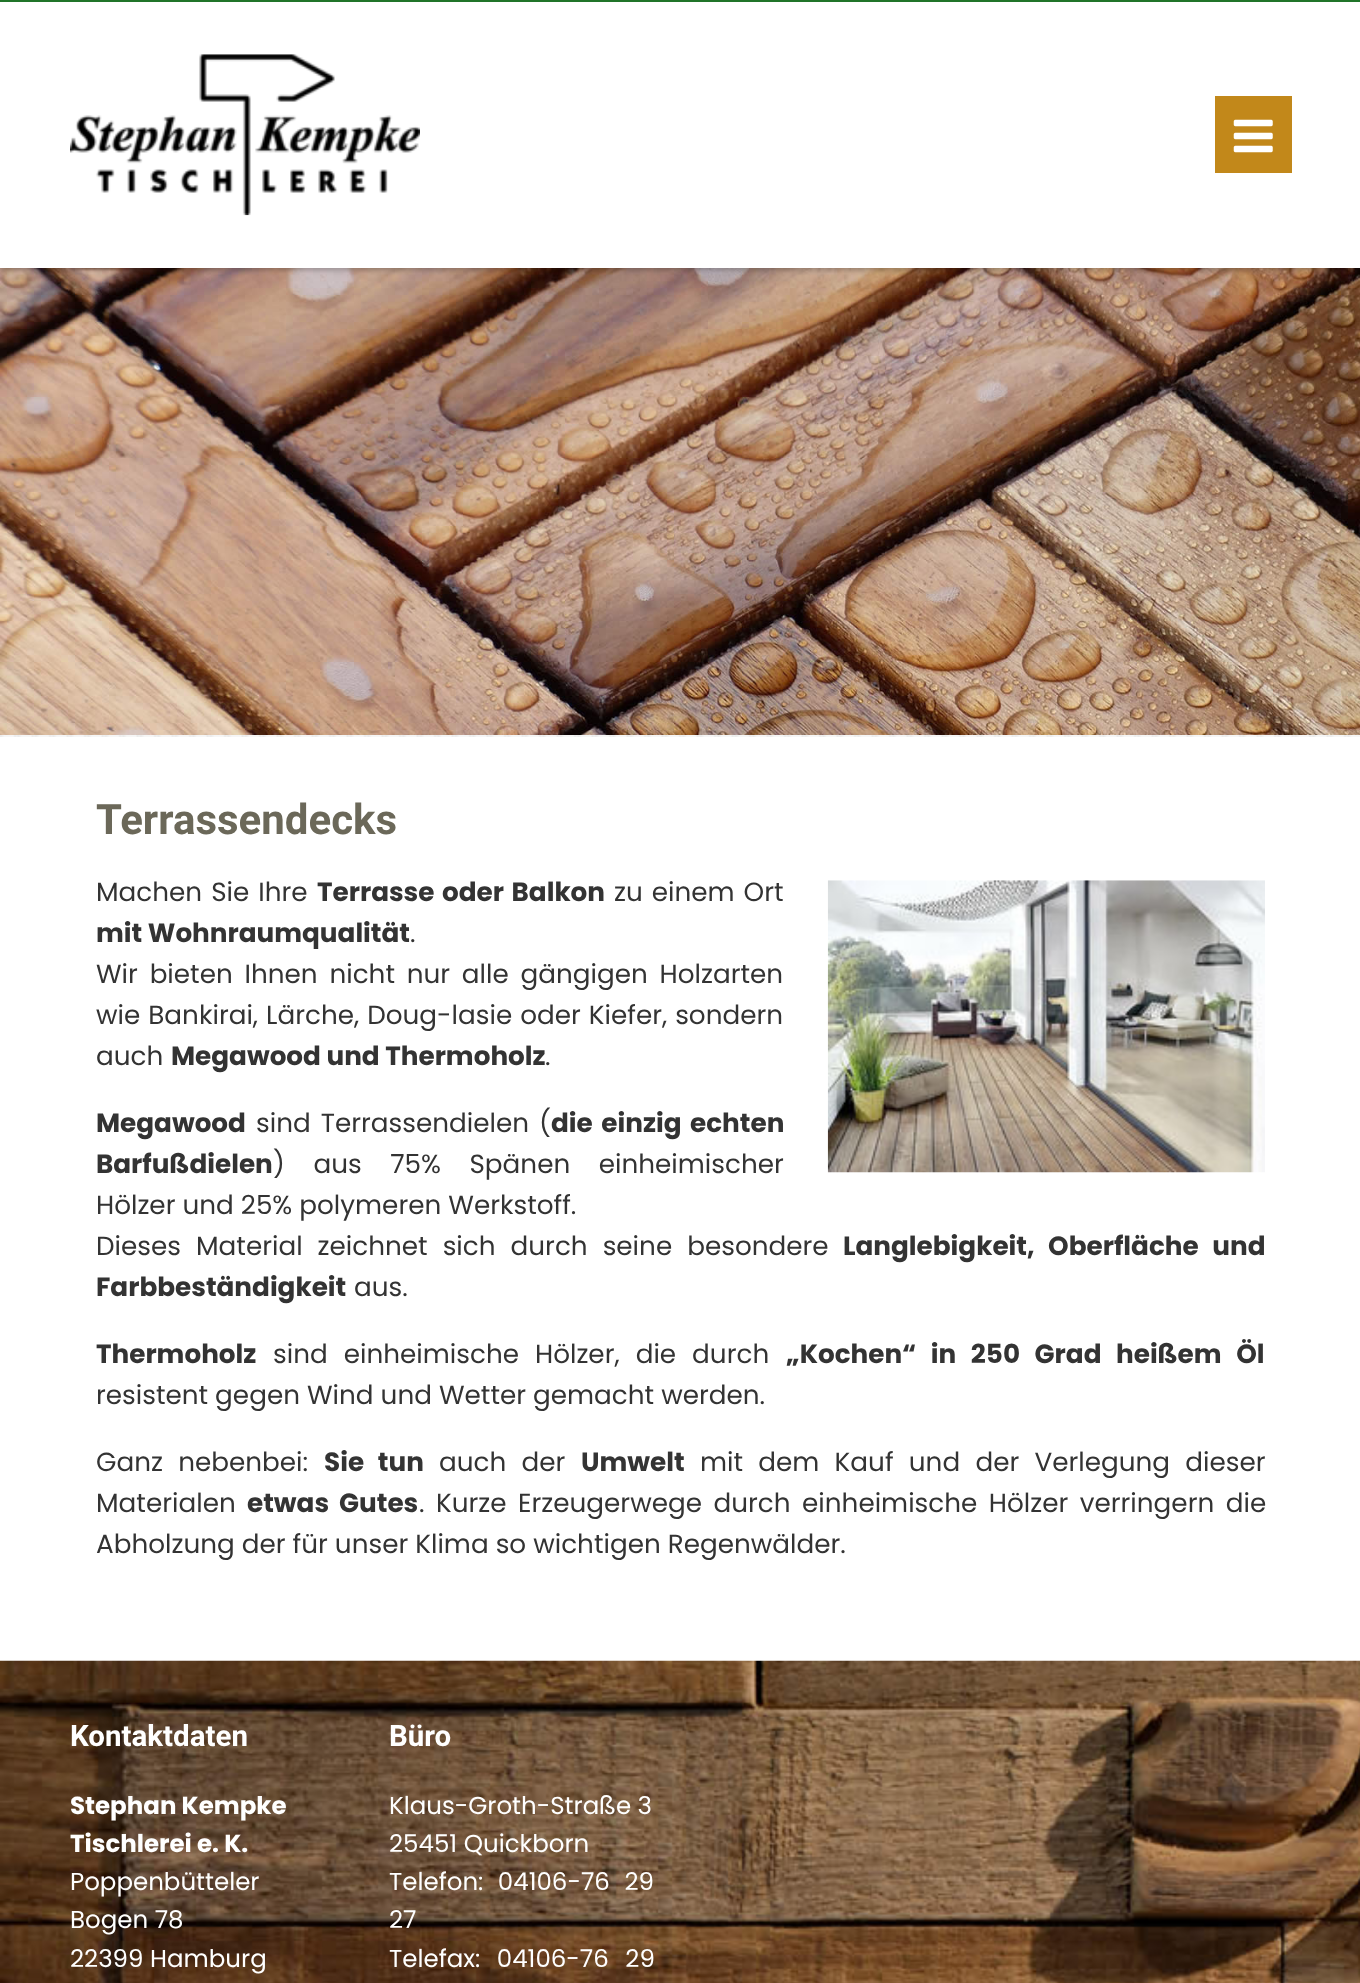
<svg xmlns="http://www.w3.org/2000/svg" xmlns:xlink="http://www.w3.org/1999/xlink" width="1360" height="1983" viewBox="0 0 1360 1983">
<style>
.cls-1{font:bold 42px Roboto;fill:#6b6859}
.cls-2{font:26.25px Poppins;fill:#333333}
.cls-3{font:bold 26.25px Poppins;fill:#333333}
.cls-4{font:bold 29.5px Roboto;fill:#ffffff}
.cls-5{font:bold 24.5px Poppins;fill:#ffffff}
.cls-6{font:24.5px Poppins;fill:#ffffff}
</style>
<rect width="100%" height="100%" fill="#ffffff"/>
<image xlink:href="image0.png" x="0" y="735" width="1360" height="2"/>
<image xlink:href="image3.png" x="0" y="268" width="1360" height="467"/>
<rect fill="#000000" fill-opacity="0.2" filter="blur(2px)" x="0" y="4" width="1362" height="267"/>
<rect fill="#ffffff" x="0" y="2" width="1360" height="266"/>
<rect fill="#207429" x="0" y="0" width="1360" height="2"/>
<image xlink:href="image1.png" x="70" y="54" width="350" height="162"/>
<rect fill="#c2881a" x="1215" y="96" width="77" height="77"/>
<image xlink:href="image2.png" x="1233" y="119" width="40" height="34"/>
<image xlink:href="image4.png" x="827" y="880" width="438" height="293"/>
<image xlink:href="image5.png" x="0" y="1660" width="1360" height="323"/>
<text class="cls-1" x="96" y="834">Terrassendecks</text>
<text class="cls-2" x="96" y="901" word-spacing="2">Machen Sie Ihre</text>
<text class="cls-3" x="317" y="901" word-spacing="2">Terrasse oder Balkon</text>
<text class="cls-2" x="614" y="901" word-spacing="2">zu einem Ort</text>
<text class="cls-3" x="96" y="942">mit Wohnraumqualität</text>
<text class="cls-2" x="410" y="942">.</text>
<text class="cls-2"><tspan x="96" y="983" word-spacing="4.75">Wir bieten Ihnen nicht nur alle gängigen Holzarten</tspan><tspan x="96" y="1024" word-spacing="1">wie Bankirai, Lärche, Doug-lasie oder Kiefer, sondern</tspan><tspan x="96" y="1065">auch</tspan></text>
<text class="cls-3" x="171" y="1065">Megawood und Thermoholz</text>
<text class="cls-2" x="545" y="1065">.</text>
<text class="cls-3" x="96" y="1132">Megawood</text>
<text class="cls-2" x="256" y="1132" word-spacing="3">sind Terrassendielen (</text>
<text class="cls-3" x="551" y="1132" word-spacing="3">die einzig echten</text>
<text class="cls-3" x="96" y="1173">Barfußdielen</text>
<text class="cls-2" x="273" y="1173" word-spacing="21.5">) aus 75% Spänen einheimischer</text>
<text class="cls-2"><tspan x="96" y="1214">Hölzer und 25% polymeren Werkstoff.</tspan><tspan x="96" y="1255" word-spacing="8">Dieses Material zeichnet sich durch seine besondere</tspan></text>
<text class="cls-3" x="843" y="1255" word-spacing="8">Langlebigkeit, Oberfläche und</text>
<text class="cls-3" x="96" y="1296">Farbbeständigkeit</text>
<text class="cls-2" x="354" y="1296">aus.</text>
<text class="cls-3" x="96" y="1363">Thermoholz</text>
<text class="cls-2" x="273" y="1363" word-spacing="9">sind einheimische Hölzer, die durch</text>
<text class="cls-3" x="786" y="1363" word-spacing="9">„Kochen“ in 250 Grad heißem Öl</text>
<text class="cls-2" x="96" y="1404">resistent gegen Wind und Wetter gemacht werden.</text>
<text class="cls-2" x="96" y="1471" word-spacing="8.25">Ganz nebenbei:</text>
<text class="cls-3" x="324" y="1471" word-spacing="8.25">Sie tun</text>
<text class="cls-2" x="439" y="1471" word-spacing="8.25">auch der</text>
<text class="cls-3" x="581" y="1471">Umwelt</text>
<text class="cls-2" x="700" y="1471" word-spacing="8.25">mit dem Kauf und der Verlegung dieser</text>
<text class="cls-2" x="96" y="1512">Materialen</text>
<text class="cls-3" x="247" y="1512" word-spacing="4.5">etwas Gutes</text>
<text class="cls-2" x="419" y="1512" word-spacing="4.5">. Kurze Erzeugerwege durch einheimische Hölzer verringern die</text>
<text class="cls-2" x="96" y="1553">Abholzung der für unser Klima so wichtigen Regenwälder.</text>
<text class="cls-4" x="70" y="1746">Kontaktdaten</text>
<text class="cls-5"><tspan x="70" y="1814">Stephan Kempke</tspan><tspan x="70" y="1852">Tischlerei e. K.</tspan></text>
<text class="cls-6"><tspan x="70" y="1890">Poppenbütteler</tspan><tspan x="70" y="1928">Bogen 78</tspan><tspan x="70" y="1967">22399 Hamburg</tspan></text>
<text class="cls-4" x="389" y="1746">Büro</text>
<text class="cls-6"><tspan x="389" y="1814">Klaus-Groth-Straße 3</tspan><tspan x="389" y="1852">25451 Quickborn</tspan><tspan x="389" y="1890" word-spacing="8">Telefon: 04106-76 29</tspan><tspan x="389" y="1928">27</tspan><tspan x="389" y="1967" word-spacing="10">Telefax: 04106-76 29</tspan></text>
</svg>
